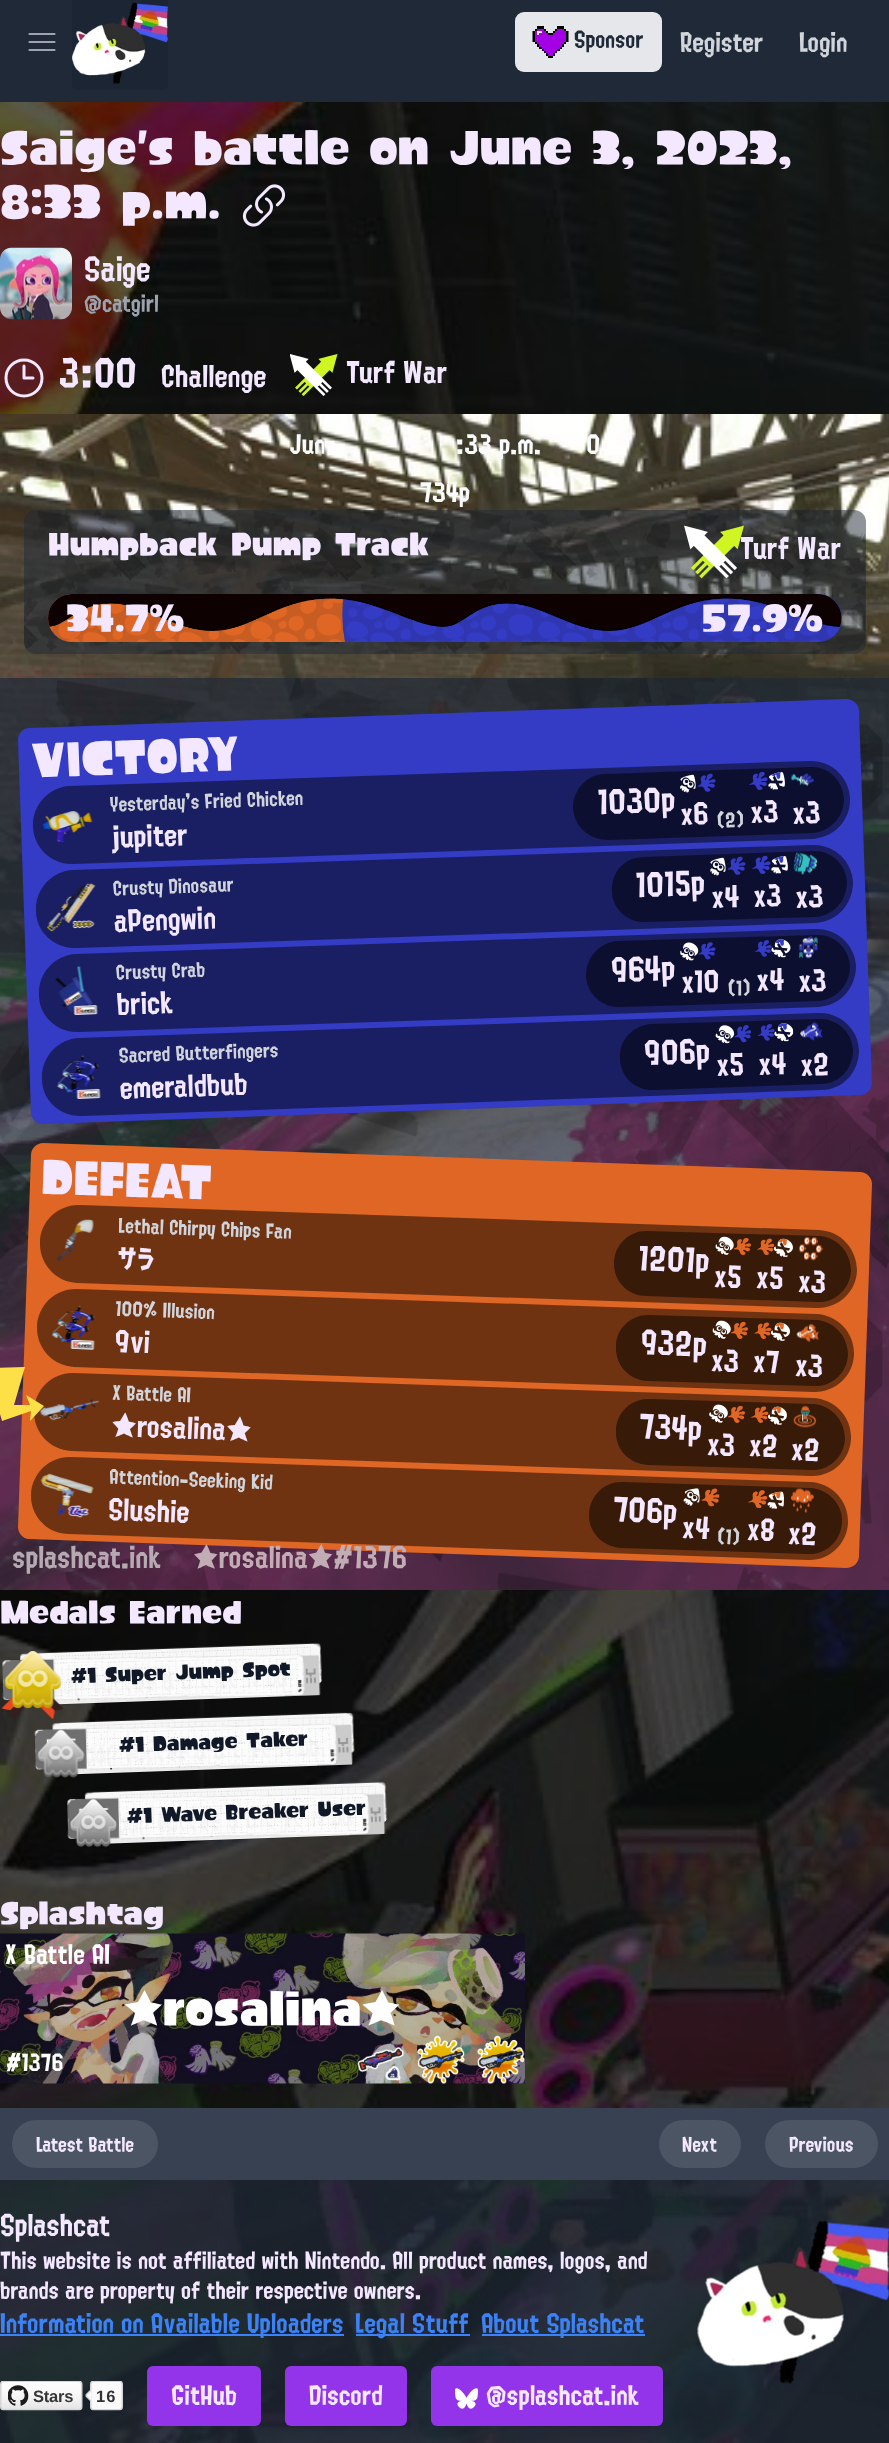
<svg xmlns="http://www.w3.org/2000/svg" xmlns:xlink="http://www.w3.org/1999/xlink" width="889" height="2443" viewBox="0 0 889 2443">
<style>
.cls-1{font:21px 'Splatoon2';fill:#1f2937}
.cls-2{font:24px 'Splatoon2';fill:#d1d5db}
.cls-3{font:800 45px 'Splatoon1';fill:#f3e8ff}
.cls-4{font:30px 'Splatoon2';fill:#f3e8ff}
.cls-5{font:21px 'Splatoon2';fill:#9ca3af}
.cls-6{font:36px 'Splatoon2';fill:#f3e8ff}
.cls-7{font:27px 'Splatoon2';fill:#f3e8ff}
.cls-8{font:24px 'Splatoon2';fill:#f9fafb}
.cls-9{font:800 30px 'Splatoon1';fill:#f3e8ff}
.cls-10{font:800 36px 'Splatoon1';fill:#f3e8ff}
.cls-11{font:18px 'Splatoon2';fill:#d1d5db}
.cls-12{font:27px 'Splatoon2';fill:#b5a9b2}
.cls-13{font:27px 'Splatoon2';fill:#c3adb5}
.cls-14{font:800 19.5px 'Splatoon1';fill:#111827}
.cls-15{font:24px 'Splatoon2';fill:#ffffff}
.cls-16{font:800 45px 'Splatoon1';fill:#ffffff}
.cls-17{font:21px 'Splatoon2';fill:#ffffff}
.cls-18{font:18px 'Splatoon2';fill:#f3e8ff}
.cls-19{font:21px 'Splatoon2';fill:#f3e8ff}
.cls-20{font:24px 'Splatoon2';fill:#3b82f6}
.cls-21{font:24px 'Splatoon2';fill:#f3e8ff}
</style>
<defs>
<clipPath id="clip1"><path d="M109.5 791L303 784.5L304 808.5L110.5 815Z"/></clipPath>
<clipPath id="clip2"><path d="M112.5 875L233.5 871L234.5 895L113.5 899Z"/></clipPath>
<clipPath id="clip3"><path d="M115.5 959L205 956L205.5 980L116.5 983Z"/></clipPath>
<clipPath id="clip4"><path d="M119 1212L292.5 1218L291.5 1242L118 1236Z"/></clipPath>
<clipPath id="clip5"><path d="M110 1464L273.5 1469.5L273 1493.5L109 1488Z"/></clipPath>
</defs>
<rect width="100%" height="100%" fill="#ffffff"/>
<rect fill="#1f2937" x="0" y="0" width="889" height="102"/>
<path fill="none" stroke="#9ca3af" stroke-width="2.2" stroke-linecap="round" stroke-linejoin="round" d="M29.5 34H54.5M29.5 42H54.5M29.5 50H54.5"/>
<rect fill="#1c2533" x="72" y="-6" width="96" height="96" rx="6"/>
<image xlink:href="image0.png" x="72" y="2" width="96" height="82"/>
<rect fill="#e5e7eb" x="515" y="12" width="147" height="60" rx="9"/>
<image xlink:href="image1.png" x="532" y="26" width="37" height="32"/>
<image xlink:href="image2.png" x="0" y="102" width="889" height="2341"/>
<image xlink:href="image3.png" x="242" y="184" width="44" height="43"/>
<image xlink:href="image4.png" x="0" y="247" width="72" height="73"/>
<path fill="none" stroke="#f3e8ff" stroke-width="3" stroke-linecap="round" stroke-linejoin="round" d="M24 366V378H33M42 378C42 388 34 396 24 396C14 396 6 388 6 378C6 368 14 360 24 360C34 360 42 368 42 378Z"/>
<image xlink:href="image5.png" x="290" y="353" width="48" height="43"/>
<image xlink:href="image6.png" x="0" y="414" width="889" height="1176"/>
<rect fill="#1f2937" fill-opacity="0.5" x="24" y="510" width="842" height="144" rx="12"/>
<image xlink:href="image7.png" x="24" y="509" width="842" height="146"/>
<image xlink:href="image8.png" x="684" y="525" width="60" height="54"/>
<rect fill="#343bc4" x="48" y="594" width="794" height="48" rx="24"/>
<image xlink:href="image9.png" x="48" y="595" width="794" height="47"/>
<image xlink:href="image11.png" x="48" y="594" width="297" height="48"/>
<image xlink:href="image10.png" x="48" y="594" width="794" height="37"/>
<rect fill="#1f2937" fill-opacity="0.7" x="0" y="678" width="889" height="912"/>
<image xlink:href="image12.png" x="0" y="677" width="889" height="914"/>
<path fill="#343bc4" d="M29 728L846 699C853 699 859 704 859 711L872 1083C872 1089 867 1095 860 1095L43 1124C37 1124 31 1119 31 1112L18 740C18 734 23 728 29 728Z"/>
<path fill="#df6624" d="M43 1143L860 1172C867 1172 872 1178 872 1184L859 1556C859 1563 853 1568 846 1568L29 1539C23 1539 18 1533 18 1527L31 1155C31 1148 37 1143 43 1143Z"/>
<path fill="#703312" d="M80 1205L819 1230C841 1231 857 1249 857 1271C856 1292 838 1309 816 1308L77 1283C56 1282 39 1264 40 1242C40 1221 59 1204 80 1205Z"/>
<image xlink:href="image29.png" x="56" y="1219" width="38" height="43"/>
<path fill="#381a09" d="M648 1231L819 1236C837 1237 851 1252 851 1271C850 1289 835 1303 817 1302L646 1296C628 1296 613 1281 614 1262C615 1244 630 1230 648 1231Z"/>
<image xlink:href="image30.png" x="715" y="1236" width="36" height="19"/>
<image xlink:href="image31.png" x="757" y="1238" width="36" height="19"/>
<image xlink:href="image32.png" x="799" y="1236" width="24" height="25"/>
<image xlink:href="image45.png" x="2" y="1642" width="320" height="64"/>
<image xlink:href="image46.png" x="1" y="1651" width="63" height="69"/>
<image xlink:href="image47.png" x="34" y="1712" width="321" height="63"/>
<image xlink:href="image48.png" x="37" y="1729" width="48" height="49"/>
<image xlink:href="image49.png" x="67" y="1781" width="320" height="64"/>
<image xlink:href="image50.png" x="70" y="1798" width="47" height="50"/>
<image xlink:href="image51.png" x="0" y="1933" width="525" height="151"/>
<image xlink:href="image52.png" x="357" y="2047" width="47" height="34"/>
<image xlink:href="image53.png" x="417" y="2035" width="48" height="49"/>
<image xlink:href="image54.png" x="477" y="2035" width="48" height="49"/>
<rect fill="#374151" x="0" y="2108" width="889" height="72"/>
<rect fill="#4b5563" x="12" y="2120" width="146" height="48" rx="24"/>
<rect fill="#4b5563" x="659" y="2120" width="82" height="48" rx="24"/>
<rect fill="#4b5563" x="765" y="2120" width="113" height="48" rx="24"/>
<rect fill="#1f2937" fill-opacity="0.7" x="0" y="2180" width="889" height="263"/>
<image xlink:href="image55.png" x="697" y="2220" width="192" height="164"/>
<rect fill="#3b82f6" x="0" y="2334" width="344" height="2"/>
<rect fill="#3b82f6" x="356" y="2334" width="114" height="2"/>
<rect fill="#3b82f6" x="482" y="2334" width="163" height="2"/>
<image xlink:href="image56.png" x="0" y="2381" width="123" height="30"/>
<rect fill="#9333ea" x="147" y="2366" width="114" height="60" rx="6"/>
<rect fill="#9333ea" x="285" y="2366" width="122" height="60" rx="6"/>
<rect fill="#9333ea" x="431" y="2366" width="232" height="60" rx="6"/>
<image xlink:href="image57.png" x="455" y="2388" width="24" height="21"/>
<text class="cls-1" x="574" y="47">Sponsor</text>
<text class="cls-2" x="680" y="51">Register</text>
<text class="cls-2" x="799" y="51">Login</text>
<text class="cls-3"><tspan x="0" y="164">Saige's battle on June 3, 2023,</tspan><tspan x="0" y="218">8:33 p.m.</tspan></text>
<text class="cls-4" x="84" y="280">Saige</text>
<text class="cls-5" x="84" y="311">@catgirl</text>
<text class="cls-6" x="59" y="386">3:00</text>
<text class="cls-7" x="161" y="386">Challenge</text>
<text class="cls-7" x="346" y="382">Turf War</text>
<text class="cls-8" x="289" y="453">Jun</text>
<text class="cls-8" x="455" y="453">:33 p.m.</text>
<text class="cls-8" x="586" y="453">0</text>
<text class="cls-8" x="420" y="501">734p</text>
<text class="cls-9" x="48" y="555">Humpback Pump Track</text>
<text class="cls-7" x="740" y="558">Turf War</text>
<text class="cls-10" x="66" y="631">34.7%</text>
<text class="cls-10" x="702" y="631">57.9%</text>
<text class="cls-3" x="31" y="777" transform="rotate(-2 31 777)">VICTORY</text>
<path fill="#1a1e62" d="M70 786L809 761C831 760 849 777 850 798C851 820 834 838 812 839L73 864C52 865 34 848 33 827C32 805 49 787 70 786Z"/>
<image xlink:href="image13.png" x="42" y="811" width="51" height="32"/>
<g clip-path="url(#clip1)">
<text class="cls-11" x="110" y="811" transform="rotate(-2 110 811)">Yesterday's Fried Chicken</text>
</g>
<text class="cls-7" x="112" y="847" transform="rotate(-2 112 847)">jupiter</text>
<path fill="#0d0f31" d="M605 774L810 767C828 766 843 780 844 799C844 817 830 832 812 833L608 840C589 840 574 826 573 808C573 790 587 774 605 774Z"/>
<text class="cls-4" x="598" y="813" transform="rotate(-2 598 813)">1030p</text>
<image xlink:href="image14.png" x="680" y="773" width="36" height="20"/>
<text class="cls-7" x="681" y="824" transform="rotate(-2 681 824)">x6</text>
<text class="cls-11" x="717" y="827" transform="rotate(-2 717 827)">(2)</text>
<image xlink:href="image15.png" x="749" y="771" width="36" height="19"/>
<text class="cls-7" x="751" y="822" transform="rotate(-2 751 822)">x3</text>
<image xlink:href="image16.png" x="790" y="773" width="24" height="14"/>
<text class="cls-7" x="793" y="823" transform="rotate(-2 793 823)">x3</text>
<path fill="#1a1e62" d="M73 870L812 845C834 844 852 861 853 882C853 904 837 922 815 923L76 948C55 949 36 932 36 911C35 889 52 871 73 870Z"/>
<image xlink:href="image17.png" x="46" y="883" width="50" height="49"/>
<g clip-path="url(#clip2)">
<text class="cls-11" x="113" y="895" transform="rotate(-2 113 895)">Crusty Dinosaur</text>
</g>
<text class="cls-7" x="114" y="931" transform="rotate(-2 114 931)">aPengwin</text>
<path fill="#0d0f31" d="M644 857L813 851C831 850 846 864 847 882C847 901 833 916 815 917L646 922C628 923 612 909 612 891C611 872 625 857 644 857Z"/>
<text class="cls-4" x="636" y="896" transform="rotate(-2 636 896)">1015p</text>
<image xlink:href="image18.png" x="710" y="856" width="36" height="20"/>
<text class="cls-7" x="712" y="907" transform="rotate(-2 712 907)">x4</text>
<image xlink:href="image19.png" x="752" y="855" width="36" height="19"/>
<text class="cls-7" x="754" y="906" transform="rotate(-2 754 906)">x3</text>
<image xlink:href="image20.png" x="793" y="852" width="25" height="23"/>
<text class="cls-7" x="796" y="907" transform="rotate(-2 796 907)">x3</text>
<path fill="#1a1e62" d="M76 954L815 929C837 928 855 945 856 966C856 988 840 1006 818 1007L79 1032C57 1033 39 1016 39 995C38 973 55 955 76 954Z"/>
<image xlink:href="image21.png" x="55" y="966" width="43" height="49"/>
<g clip-path="url(#clip3)">
<text class="cls-11" x="116" y="979" transform="rotate(-2 116 979)">Crusty Crab</text>
</g>
<text class="cls-7" x="117" y="1014" transform="rotate(-2 117 1014)">brick</text>
<path fill="#0d0f31" d="M618 941L816 935C834 934 849 948 850 966C850 985 836 1000 818 1001L621 1007C602 1008 587 994 586 976C586 957 600 942 618 941Z"/>
<text class="cls-4" x="611" y="981" transform="rotate(-2 611 981)">964p</text>
<image xlink:href="image22.png" x="680" y="942" width="36" height="19"/>
<text class="cls-7" x="682" y="992" transform="rotate(-2 682 992)">x10</text>
<text class="cls-11" x="728" y="995" transform="rotate(-2 728 995)">(1)</text>
<image xlink:href="image23.png" x="755" y="939" width="36" height="19"/>
<text class="cls-7" x="757" y="990" transform="rotate(-2 757 990)">x4</text>
<image xlink:href="image24.png" x="798" y="935" width="20" height="24"/>
<text class="cls-7" x="799" y="991" transform="rotate(-2 799 991)">x3</text>
<path fill="#1a1e62" d="M79 1038L818 1013C840 1012 858 1029 859 1050C859 1072 843 1090 821 1090L82 1116C60 1117 42 1100 42 1079C41 1057 58 1039 79 1038Z"/>
<image xlink:href="image25.png" x="57" y="1055" width="44" height="44"/>
<text class="cls-11" x="119" y="1062" transform="rotate(-2 119 1062)">Sacred Butterfingers</text>
<text class="cls-7" x="120" y="1098" transform="rotate(-2 120 1098)">emeraldbub</text>
<path fill="#0d0f31" d="M652 1024L818 1019C837 1018 852 1032 853 1050C853 1069 839 1084 821 1084L654 1090C636 1091 620 1077 620 1058C619 1040 633 1025 652 1024Z"/>
<text class="cls-4" x="644" y="1064" transform="rotate(-2 644 1064)">906p</text>
<image xlink:href="image26.png" x="715" y="1025" width="37" height="19"/>
<text class="cls-7" x="717" y="1075" transform="rotate(-2 717 1075)">x5</text>
<image xlink:href="image27.png" x="757" y="1023" width="37" height="19"/>
<text class="cls-7" x="759" y="1074" transform="rotate(-2 759 1074)">x4</text>
<image xlink:href="image28.png" x="800" y="1021" width="23" height="20"/>
<text class="cls-7" x="801" y="1075" transform="rotate(-2 801 1075)">x2</text>
<text class="cls-3" x="41" y="1193" transform="rotate(2 41 1193)">DEFEAT</text>
<g clip-path="url(#clip4)">
<text class="cls-11" x="118" y="1232" transform="rotate(2 118 1232)">Lethal Chirpy Chips Fan</text>
</g>
<text class="cls-7" x="117" y="1268" transform="rotate(2 117 1268)">サラ</text>
<text class="cls-4" x="638" y="1269" transform="rotate(2 638 1269)">1201p</text>
<text class="cls-7" x="714" y="1286" transform="rotate(2 714 1286)">x5</text>
<text class="cls-7" x="756" y="1287" transform="rotate(2 756 1287)">x5</text>
<text class="cls-7" x="798" y="1291" transform="rotate(2 798 1291)">x3</text>
<path fill="#703312" d="M77 1289L816 1314C838 1315 855 1333 854 1355C853 1376 835 1393 813 1392L74 1367C53 1366 36 1348 37 1326C38 1305 56 1288 77 1289Z"/>
<image xlink:href="image33.png" x="51" y="1305" width="44" height="45"/>
<text class="cls-11" x="115" y="1315" transform="rotate(2 115 1315)">100% Illusion</text>
<text class="cls-7" x="114" y="1351" transform="rotate(2 114 1351)">9vi</text>
<path fill="#381a09" d="M650 1315L816 1320C834 1321 848 1336 848 1355C847 1373 832 1387 814 1386L648 1381C629 1380 615 1365 616 1346C616 1328 632 1314 650 1315Z"/>
<text class="cls-4" x="640" y="1353" transform="rotate(2 640 1353)">932p</text>
<image xlink:href="image34.png" x="712" y="1320" width="36" height="19"/>
<text class="cls-7" x="711" y="1370" transform="rotate(2 711 1370)">x3</text>
<image xlink:href="image35.png" x="754" y="1322" width="36" height="19"/>
<text class="cls-7" x="753" y="1371" transform="rotate(2 753 1371)">x7</text>
<image xlink:href="image36.png" x="796" y="1323" width="24" height="20"/>
<text class="cls-7" x="795" y="1375" transform="rotate(2 795 1375)">x3</text>
<path fill="#703312" d="M74 1373L813 1398C835 1399 852 1417 851 1439C850 1460 832 1477 811 1476L71 1451C50 1450 33 1432 34 1410C35 1389 53 1372 74 1373Z"/>
<image xlink:href="image37.png" x="40" y="1399" width="60" height="22"/>
<path fill="#fde047" fill-rule="evenodd" d="M25 1367L-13 1368L2 1421L31 1411L30 1421L44 1406L26 1395L30 1405H14Z"/>
<text class="cls-11" x="112" y="1399" transform="rotate(2 112 1399)">X Battle AI</text>
<text class="cls-7" x="111" y="1435" transform="rotate(2 111 1435)">★rosalina★</text>
<path fill="#381a09" d="M650 1399L813 1404C831 1405 845 1420 845 1439C844 1457 829 1471 811 1470L648 1465C629 1464 615 1449 616 1431C616 1412 632 1398 650 1399Z"/>
<text class="cls-4" x="639" y="1437" transform="rotate(2 639 1437)">734p</text>
<image xlink:href="image38.png" x="709" y="1404" width="36" height="19"/>
<text class="cls-7" x="707" y="1454" transform="rotate(2 707 1454)">x3</text>
<image xlink:href="image39.png" x="751" y="1406" width="36" height="19"/>
<text class="cls-7" x="749" y="1455" transform="rotate(2 749 1455)">x2</text>
<image xlink:href="image40.png" x="793" y="1405" width="24" height="23"/>
<text class="cls-7" x="791" y="1459" transform="rotate(2 791 1459)">x2</text>
<path fill="#703312" d="M71 1457L810 1482C832 1483 849 1501 848 1523C847 1544 829 1561 808 1560L69 1534C47 1534 30 1516 31 1494C32 1473 50 1456 71 1457Z"/>
<image xlink:href="image41.png" x="40" y="1473" width="54" height="45"/>
<g clip-path="url(#clip5)">
<text class="cls-11" x="109" y="1483" transform="rotate(2 109 1483)">Attention-Seeking Kid</text>
</g>
<text class="cls-7" x="108" y="1519" transform="rotate(2 108 1519)">Slushie</text>
<path fill="#381a09" d="M623 1482L810 1488C828 1489 843 1504 842 1522C841 1541 826 1555 808 1554L621 1548C603 1547 588 1532 589 1514C590 1495 605 1481 623 1482Z"/>
<text class="cls-4" x="613" y="1520" transform="rotate(2 613 1520)">706p</text>
<image xlink:href="image42.png" x="683" y="1488" width="37" height="19"/>
<text class="cls-7" x="682" y="1537" transform="rotate(2 682 1537)">x4</text>
<text class="cls-11" x="717" y="1543" transform="rotate(2 717 1543)">(1)</text>
<image xlink:href="image43.png" x="748" y="1490" width="36" height="19"/>
<text class="cls-7" x="747" y="1539" transform="rotate(2 747 1539)">x8</text>
<image xlink:href="image44.png" x="790" y="1488" width="24" height="25"/>
<text class="cls-7" x="788" y="1543" transform="rotate(2 788 1543)">x2</text>
<text class="cls-12" x="12" y="1567">splashcat.ink</text>
<text class="cls-13" x="193" y="1567">★rosalina★#1376</text>
<text class="cls-9" x="0" y="1623">Medals Earned</text>
<text class="cls-14" x="71" y="1683" transform="rotate(-2 71 1683)">#1 Super Jump Spot</text>
<text class="cls-14" x="119" y="1752" transform="rotate(-2 119 1752)">#1 Damage Taker</text>
<text class="cls-14" x="127" y="1823" transform="rotate(-2 127 1823)">#1 Wave Breaker User</text>
<text class="cls-9" x="0" y="1924">Splashtag</text>
<text class="cls-15" x="5" y="1963">X Battle AI</text>
<text class="cls-16" x="124" y="2025">★rosalina★</text>
<text class="cls-17" x="6" y="2070">#1376</text>
<text class="cls-18" x="36" y="2151">Latest Battle</text>
<text class="cls-18" x="682" y="2151">Next</text>
<text class="cls-18" x="789" y="2151">Previous</text>
<text class="cls-7" x="0" y="2235">Splashcat</text>
<text class="cls-19"><tspan x="0" y="2268">This website is not affiliated with Nintendo. All product names, logos, and</tspan><tspan x="0" y="2298">brands are property of their respective owners.</tspan></text>
<text class="cls-20" x="0" y="2332">Information on Available Uploaders</text>
<text class="cls-20" x="355" y="2332">Legal Stuff</text>
<text class="cls-20" x="481" y="2332">About Splashcat</text>
<text class="cls-21" x="171" y="2404">GitHub</text>
<text class="cls-21" x="309" y="2404">Discord</text>
<text class="cls-21" x="486" y="2404">@splashcat.ink</text>
</svg>
